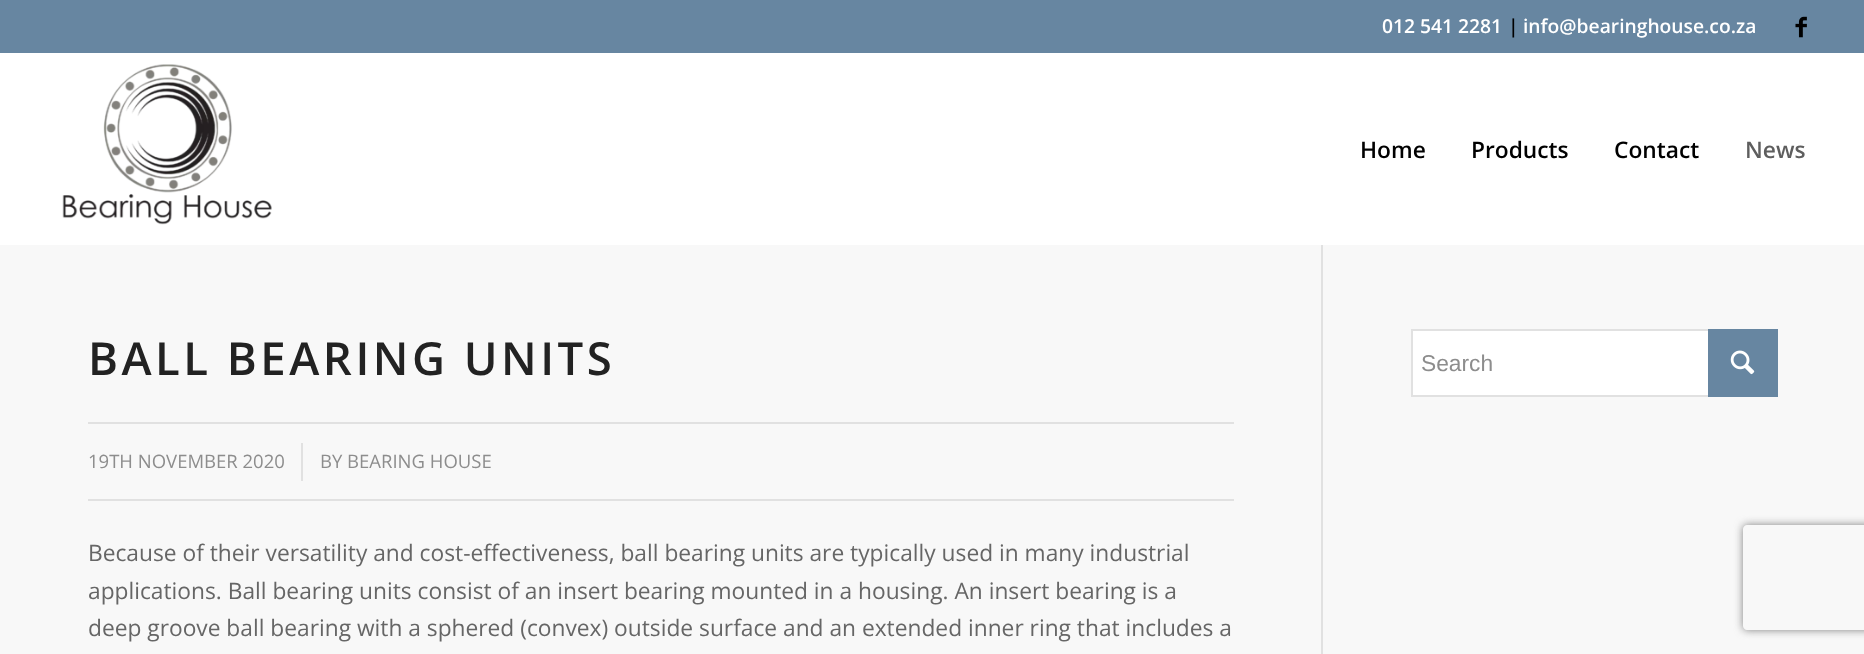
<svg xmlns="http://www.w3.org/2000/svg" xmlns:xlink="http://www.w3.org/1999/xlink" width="1864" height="654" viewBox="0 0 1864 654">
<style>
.cls-1{font:600 19.25px Open Sans;fill:#ffffff}
.cls-2{font:600 19.25px Open Sans;fill:#000000}
.cls-3{font:600 22.75px Open Sans;fill:#000000}
.cls-4{font:600 22.75px Open Sans;fill:#5e5e5e}
.cls-5{font:600 45.5px Open Sans;letter-spacing:3.5px;fill:#222222}
.cls-6{font:18.5px Open Sans;fill:#8d8d8d}
.cls-7{font:22.75px Open Sans;fill:#666666}
.cls-8{font:22.75px Liberation Sans;fill:#8d8d8d}
</style>
<defs>
<clipPath id="clip1"><path d="M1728 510H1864V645H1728ZM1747 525H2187C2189 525 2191 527 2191 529V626C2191 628 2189 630 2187 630H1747C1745 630 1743 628 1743 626V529C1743 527 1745 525 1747 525Z" clip-rule="evenodd"/></clipPath>
</defs>
<rect width="100%" height="100%" fill="#f8f8f8"/>
<rect fill="#6786a1" x="0" y="0" width="1864" height="53"/>
<image xlink:href="image0.png" x="1795" y="16" width="12" height="22"/>
<rect fill="#e1e1e1" x="1321" y="242" width="2" height="412"/>
<rect fill="#ffffff" x="0" y="53" width="1864" height="192"/>
<image xlink:href="image1.png" x="62" y="64" width="210" height="161"/>
<rect fill="#e1e1e1" x="88" y="422" width="1146" height="2"/>
<rect fill="#e1e1e1" x="88" y="499" width="1146" height="2"/>
<rect fill="#e1e1e1" x="301" y="443" width="2" height="38"/>
<rect fill="#ffffff" x="1413" y="331" width="295" height="64"/>
<rect fill="none" stroke="#e1e1e1" stroke-width="2" x="1412" y="330" width="365" height="66"/>
<rect fill="#6786a1" x="1708" y="329" width="70" height="68"/>
<image xlink:href="image2.png" x="1730" y="350" width="25" height="25"/>
<g clip-path="url(#clip1)">
<rect fill="#808080" filter="blur(4.5px)" x="1743" y="525" width="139" height="105" rx="4"/>
</g>
<text class="cls-1" x="1382" y="33">012 541 2281</text>
<text class="cls-2" x="1508" y="33">|</text>
<text class="cls-1" x="1523" y="33">info@bearinghouse.co.za</text>
<text class="cls-3" x="1360" y="158">Home</text>
<text class="cls-3" x="1471" y="158">Products</text>
<text class="cls-3" x="1614" y="158">Contact</text>
<text class="cls-4" x="1745" y="158">News</text>
<text class="cls-5" x="88" y="375">BALL BEARING UNITS</text>
<text class="cls-6" x="88" y="468">19TH NOVEMBER 2020</text>
<text class="cls-6" x="320" y="468">BY BEARING HOUSE</text>
<text class="cls-7"><tspan x="88" y="561">Because of their versatility and cost-effectiveness, ball bearing units are typically used in many industrial</tspan><tspan x="88" y="599">applications. Ball bearing units consist of an insert bearing mounted in a housing. An insert bearing is a</tspan><tspan x="88" y="636">deep groove ball bearing with a sphered (convex) outside surface and an extended inner ring that includes a</tspan></text>
<text class="cls-8" x="1421" y="371">Search</text>
</svg>
